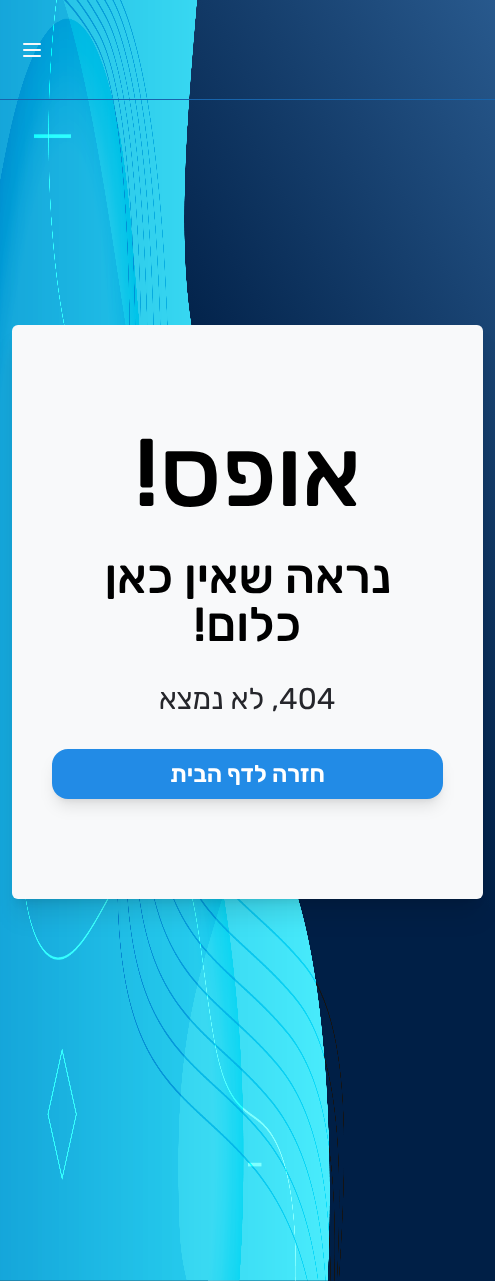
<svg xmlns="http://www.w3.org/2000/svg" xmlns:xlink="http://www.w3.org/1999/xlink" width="495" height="1281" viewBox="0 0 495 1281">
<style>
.cls-1{font:500 96px Rubik;direction:rtl;fill:#000000}
.cls-2{font:500 48px Rubik;direction:rtl;fill:#000000}
.cls-3{font:30px Rubik;fill:#25262b}
.cls-4{font:30px Rubik;direction:rtl;fill:#25262b}
.cls-5{font:600 24px Rubik;direction:rtl;fill:#ffffff}
</style>
<rect width="100%" height="100%" fill="#ffffff"/>
<image xlink:href="image0.png" x="0" y="0" width="495" height="1281"/>
<rect fill="#1864ab" x="0" y="99" width="495" height="1"/>
<image xlink:href="image1.png" x="23" y="43" width="18" height="14"/>
<rect fill="#000000" fill-opacity="0.1" filter="blur(5px)" x="18" y="339" width="459" height="562"/>
<rect fill="#000000" fill-opacity="0.1" filter="blur(12.5px)" x="17" y="350" width="461" height="564" rx="1"/>
<rect fill="#f8f9fa" x="12" y="325" width="471" height="574" rx="6"/>
<rect fill="#000000" fill-opacity="0.1" filter="blur(3px)" x="56" y="757" width="383" height="42" rx="12"/>
<rect fill="#000000" fill-opacity="0.1" filter="blur(7.5px)" x="55" y="762" width="385" height="44" rx="13"/>
<rect fill="#228be6" x="52" y="749" width="391" height="50" rx="16"/>
<text class="cls-1" x="361" y="506">אופס!</text>
<text class="cls-2" x="391" y="593">נראה שאין כאן</text>
<text class="cls-2" x="301" y="641">כלום!</text>
<text class="cls-3" x="279" y="709">404</text>
<text class="cls-4" x="279" y="709">, לא נמצא</text>
<text class="cls-5" x="325" y="782">חזרה לדף הבית</text>
</svg>
